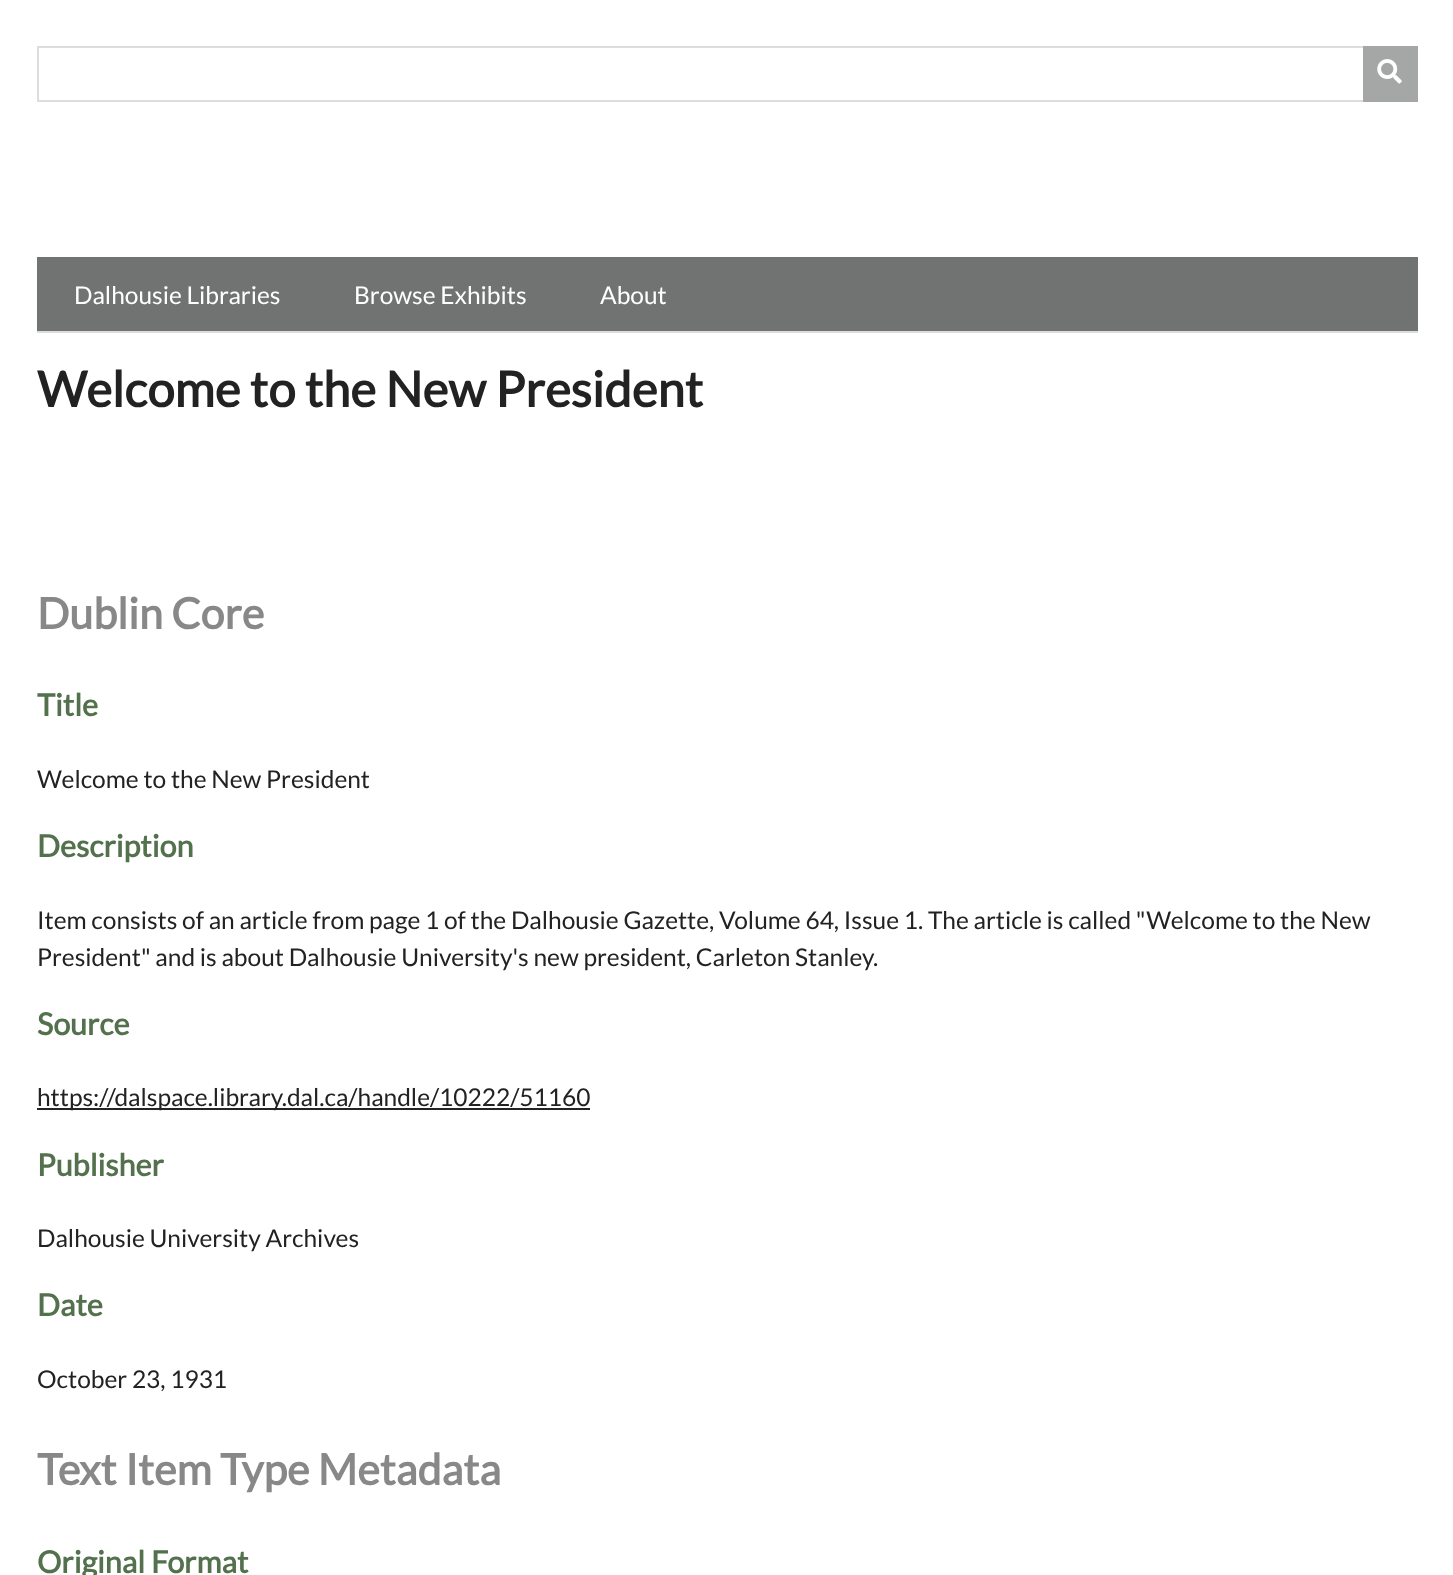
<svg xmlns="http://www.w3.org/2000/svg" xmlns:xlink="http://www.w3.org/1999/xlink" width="1453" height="1575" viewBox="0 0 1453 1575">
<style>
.cls-1{font:24.5px Lato;fill:#ffffff}
.cls-2{font:bold 49px Lato;fill:#222222}
.cls-3{font:bold 42.9px Lato;fill:#888888}
.cls-4{font:bold 30.5px Lato;fill:#52714c}
.cls-5{font:24.5px Lato;fill:#222222}
</style>
<rect width="100%" height="100%" fill="#ffffff"/>
<rect fill="none" stroke="#dddddd" stroke-width="2" x="38" y="47" width="1379" height="54"/>
<rect fill="#a5a7a6" x="1363" y="46" width="55" height="56"/>
<image xlink:href="image0.png" x="1377" y="59" width="25" height="25"/>
<rect fill="#707372" x="37" y="257" width="1381" height="74"/>
<rect fill="#dddddd" x="37" y="331" width="1381" height="2"/>
<rect fill="#242424" x="37" y="1108" width="553" height="2"/>
<text class="cls-1" x="74" y="304">Dalhousie Libraries</text>
<text class="cls-1" x="354" y="304">Browse Exhibits</text>
<text class="cls-1" x="600" y="304">About</text>
<text class="cls-2" x="37" y="407">Welcome to the New President</text>
<text class="cls-3" x="37" y="629">Dublin Core</text>
<text class="cls-4" x="37" y="716">Title</text>
<text class="cls-5" x="37" y="788">Welcome to the New President</text>
<text class="cls-4" x="37" y="857">Description</text>
<text class="cls-5"><tspan x="37" y="929">Item consists of an article from page 1 of the Dalhousie Gazette, Volume 64, Issue 1. The article is called "Welcome to the New</tspan><tspan x="37" y="966">President" and is about Dalhousie University's new president, Carleton Stanley.</tspan></text>
<text class="cls-4" x="37" y="1035">Source</text>
<text class="cls-5" x="37" y="1106">https://dalspace.library.dal.ca/handle/10222/51160</text>
<text class="cls-4" x="37" y="1176">Publisher</text>
<text class="cls-5" x="37" y="1247">Dalhousie University Archives</text>
<text class="cls-4" x="37" y="1316">Date</text>
<text class="cls-5" x="37" y="1388">October 23, 1931</text>
<text class="cls-3" x="37" y="1485">Text Item Type Metadata</text>
<text class="cls-4" x="37" y="1573">Original Format</text>
</svg>
